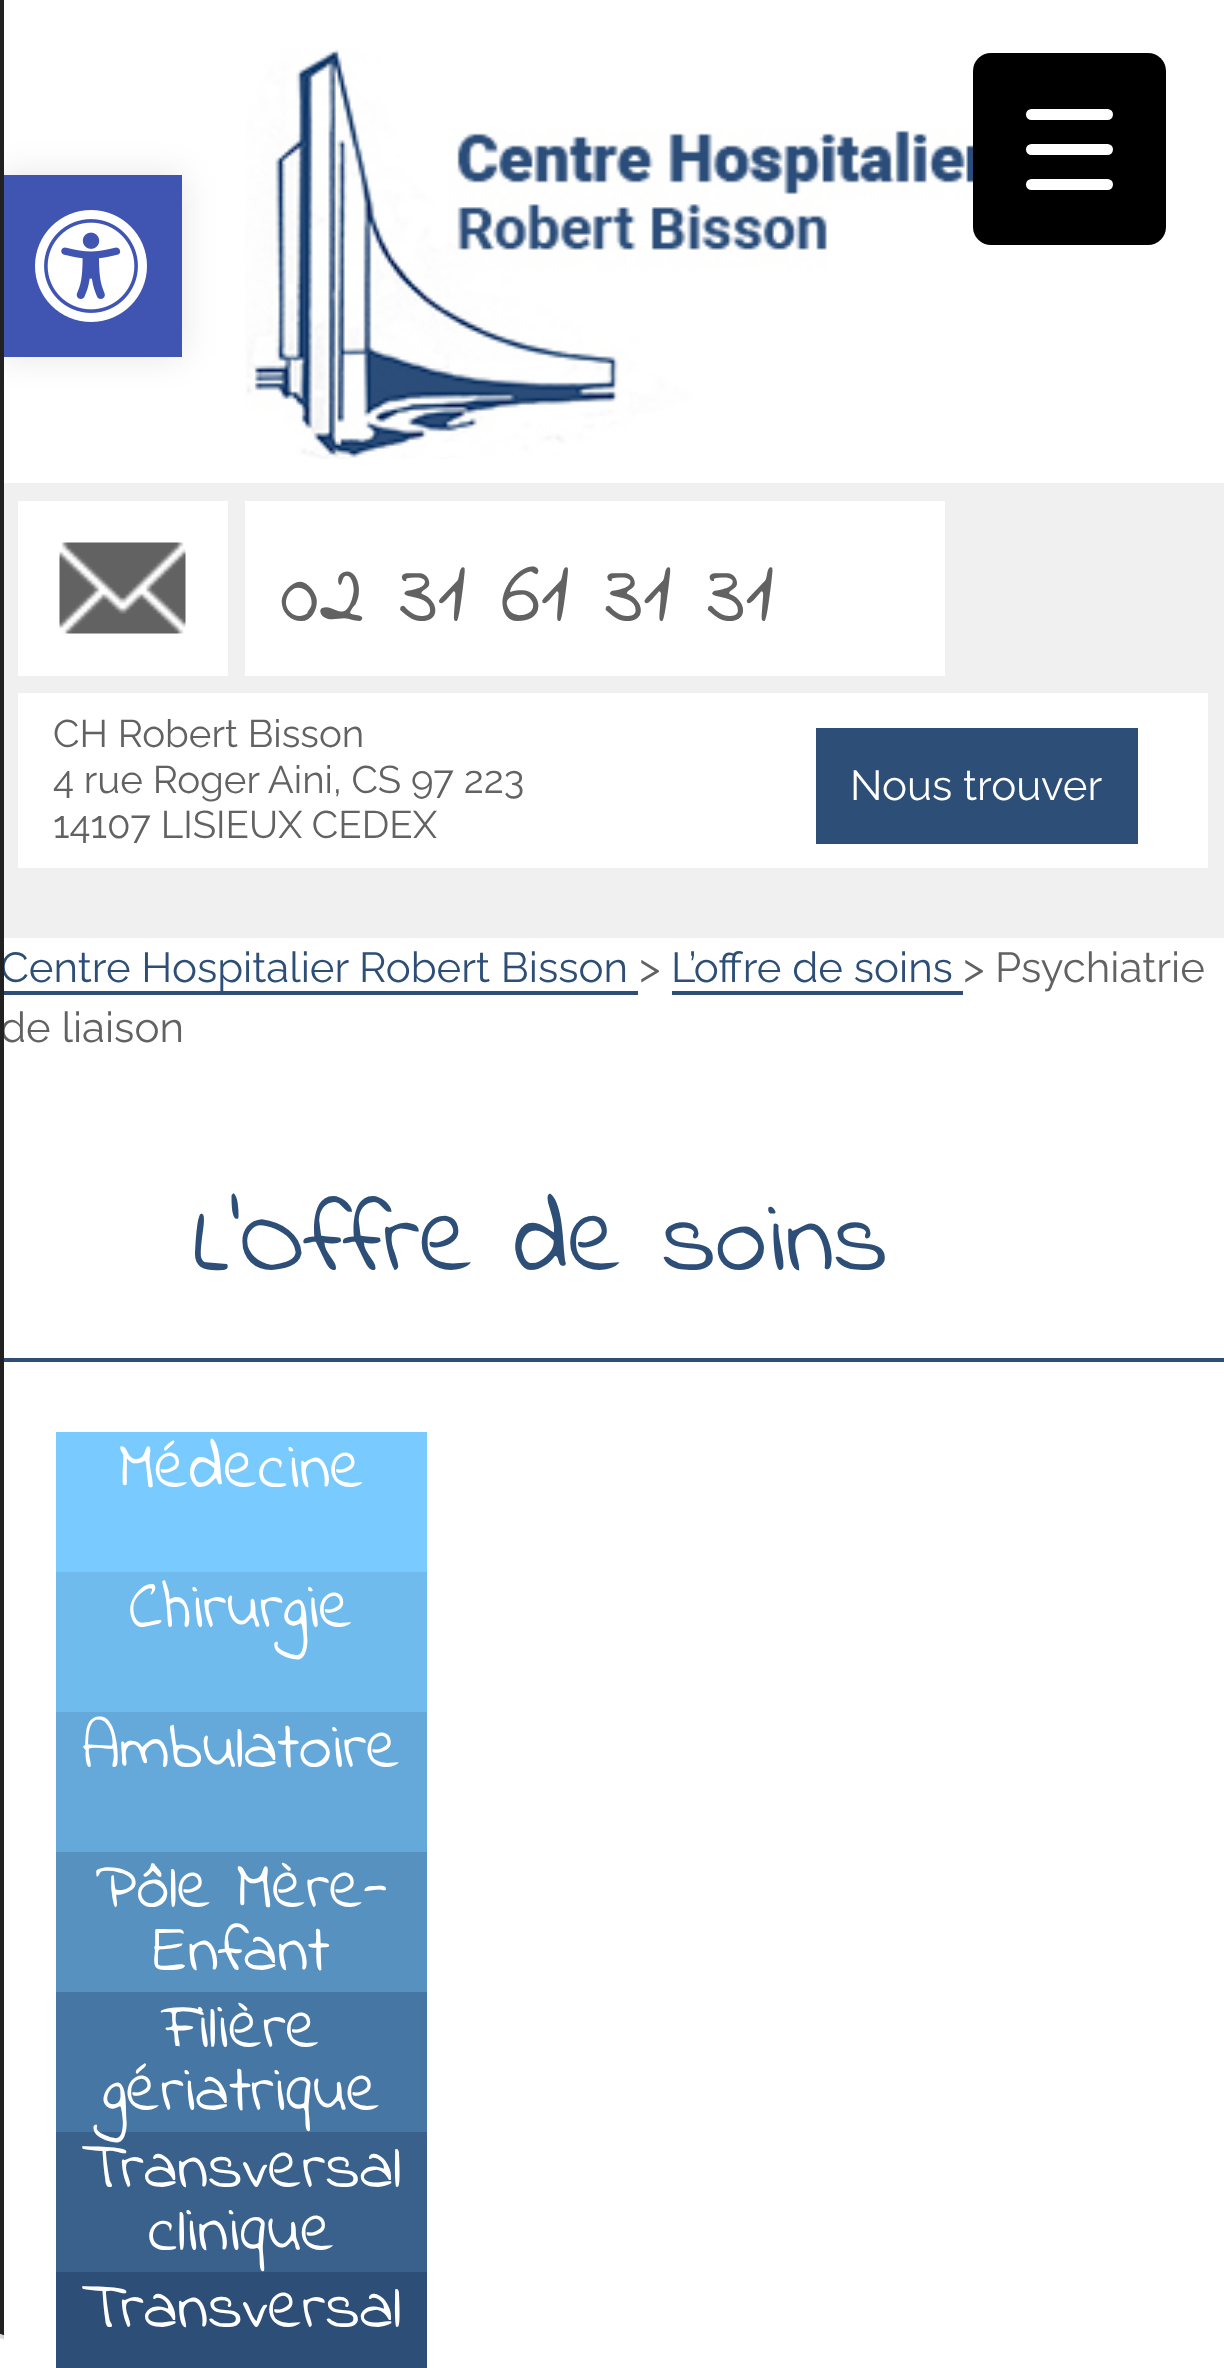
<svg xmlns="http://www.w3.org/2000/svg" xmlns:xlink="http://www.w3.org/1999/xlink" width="1224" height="2368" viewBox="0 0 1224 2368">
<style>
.cls-1{font:91px Indie Flower;fill:#626262}
.cls-2{font:38.5px Raleway;fill:#626262}
.cls-3{font:42px Raleway;fill:#ffffff}
.cls-4{font:42px Raleway;fill:#2d4e77}
.cls-5{font:42px Raleway;fill:#626262}
.cls-6{font:105px Indie Flower;fill:#2d4e77}
.cls-7{font:66.5px Indie Flower;fill:#ffffff}
</style>
<defs>
<clipPath id="clip1"><rect x="0" y="0" width="4" height="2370"/></clipPath>
</defs>
<rect width="100%" height="100%" fill="#ffffff"/>
<rect fill="#000000" fill-opacity="0.1" filter="blur(17.5px)" x="0" y="175" width="182" height="182"/>
<rect fill="#4054b2" x="4" y="175" width="178" height="182"/>
<image xlink:href="image0.png" x="35" y="210" width="112" height="112"/>
<image xlink:href="image1.png" x="245" y="49" width="746" height="410"/>
<rect fill="#000000" x="973" y="53" width="193" height="192" rx="18"/>
<rect fill="#ffffff" x="1026" y="144" width="87" height="11" rx="5.5"/>
<rect fill="#ffffff" x="1026" y="109" width="87" height="11" rx="5.5"/>
<rect fill="#ffffff" x="1026" y="179" width="87" height="11" rx="5.5"/>
<rect fill="#f0f0f0" x="4" y="483" width="1220" height="455"/>
<rect fill="#ffffff" x="18" y="501" width="210" height="175"/>
<image xlink:href="image2.png" x="59" y="542" width="127" height="92"/>
<rect fill="#ffffff" x="245" y="501" width="700" height="175"/>
<rect fill="#ffffff" x="18" y="693" width="1190" height="175"/>
<rect fill="#2d4e77" x="816" y="728" width="322" height="116"/>
<rect fill="#2d4e77" x="0" y="991" width="638" height="4"/>
<rect fill="#2d4e77" x="672" y="991" width="291" height="4"/>
<rect fill="#2d4e77" x="0" y="1358" width="1224" height="4"/>
<rect fill="#79cbff" x="56" y="1432" width="371" height="140"/>
<rect fill="#6fbbee" x="56" y="1572" width="371" height="140"/>
<rect fill="#64a9da" x="56" y="1712" width="371" height="140"/>
<rect fill="#5691c0" x="56" y="1852" width="371" height="140"/>
<rect fill="#4677a4" x="56" y="1992" width="371" height="140"/>
<rect fill="#39618c" x="56" y="2132" width="371" height="140"/>
<rect fill="#2d4e77" x="56" y="2272" width="371" height="96"/>
<text class="cls-1" x="280" y="621">02 31 61 31 31</text>
<text class="cls-2"><tspan x="53" y="747">CH Robert Bisson</tspan><tspan x="53" y="793">4 rue Roger Aini, CS 97 223</tspan><tspan x="53" y="838">14107 LISIEUX CEDEX</tspan></text>
<text class="cls-3" x="850" y="800">Nous trouver</text>
<text class="cls-4" x="0" y="982">Centre Hospitalier Robert Bisson</text>
<text class="cls-5" x="639" y="982">&gt;</text>
<text class="cls-4" x="671" y="982">L’offre de soins</text>
<text class="cls-5" x="963" y="982">&gt; Psychiatrie</text>
<text class="cls-5" x="0" y="1042">de liaison</text>
<rect fill="#212121" x="0" y="0" width="4" height="2342"/>
<g clip-path="url(#clip1)">
<rect fill="#ffffff" stroke="#dadada" stroke-width="4" x="-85" y="2333" width="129" height="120" rx="80.5"/>
</g>
<text class="cls-6" x="193" y="1270">L'Offre de soins</text>
<text class="cls-7" x="119" y="1487">Médecine</text>
<text class="cls-7" x="129" y="1627">Chirurgie</text>
<text class="cls-7" x="82" y="1767">Ambulatoire</text>
<text class="cls-7" x="95" y="1907">Pôle Mère-</text>
<text class="cls-7" x="153" y="1970">Enfant</text>
<text class="cls-7" x="163" y="2047">Filière</text>
<text class="cls-7" x="102" y="2110">gériatrique</text>
<text class="cls-7" x="82" y="2187">Transversal</text>
<text class="cls-7" x="148" y="2250">clinique</text>
<text class="cls-7" x="82" y="2327">Transversal</text>
</svg>
